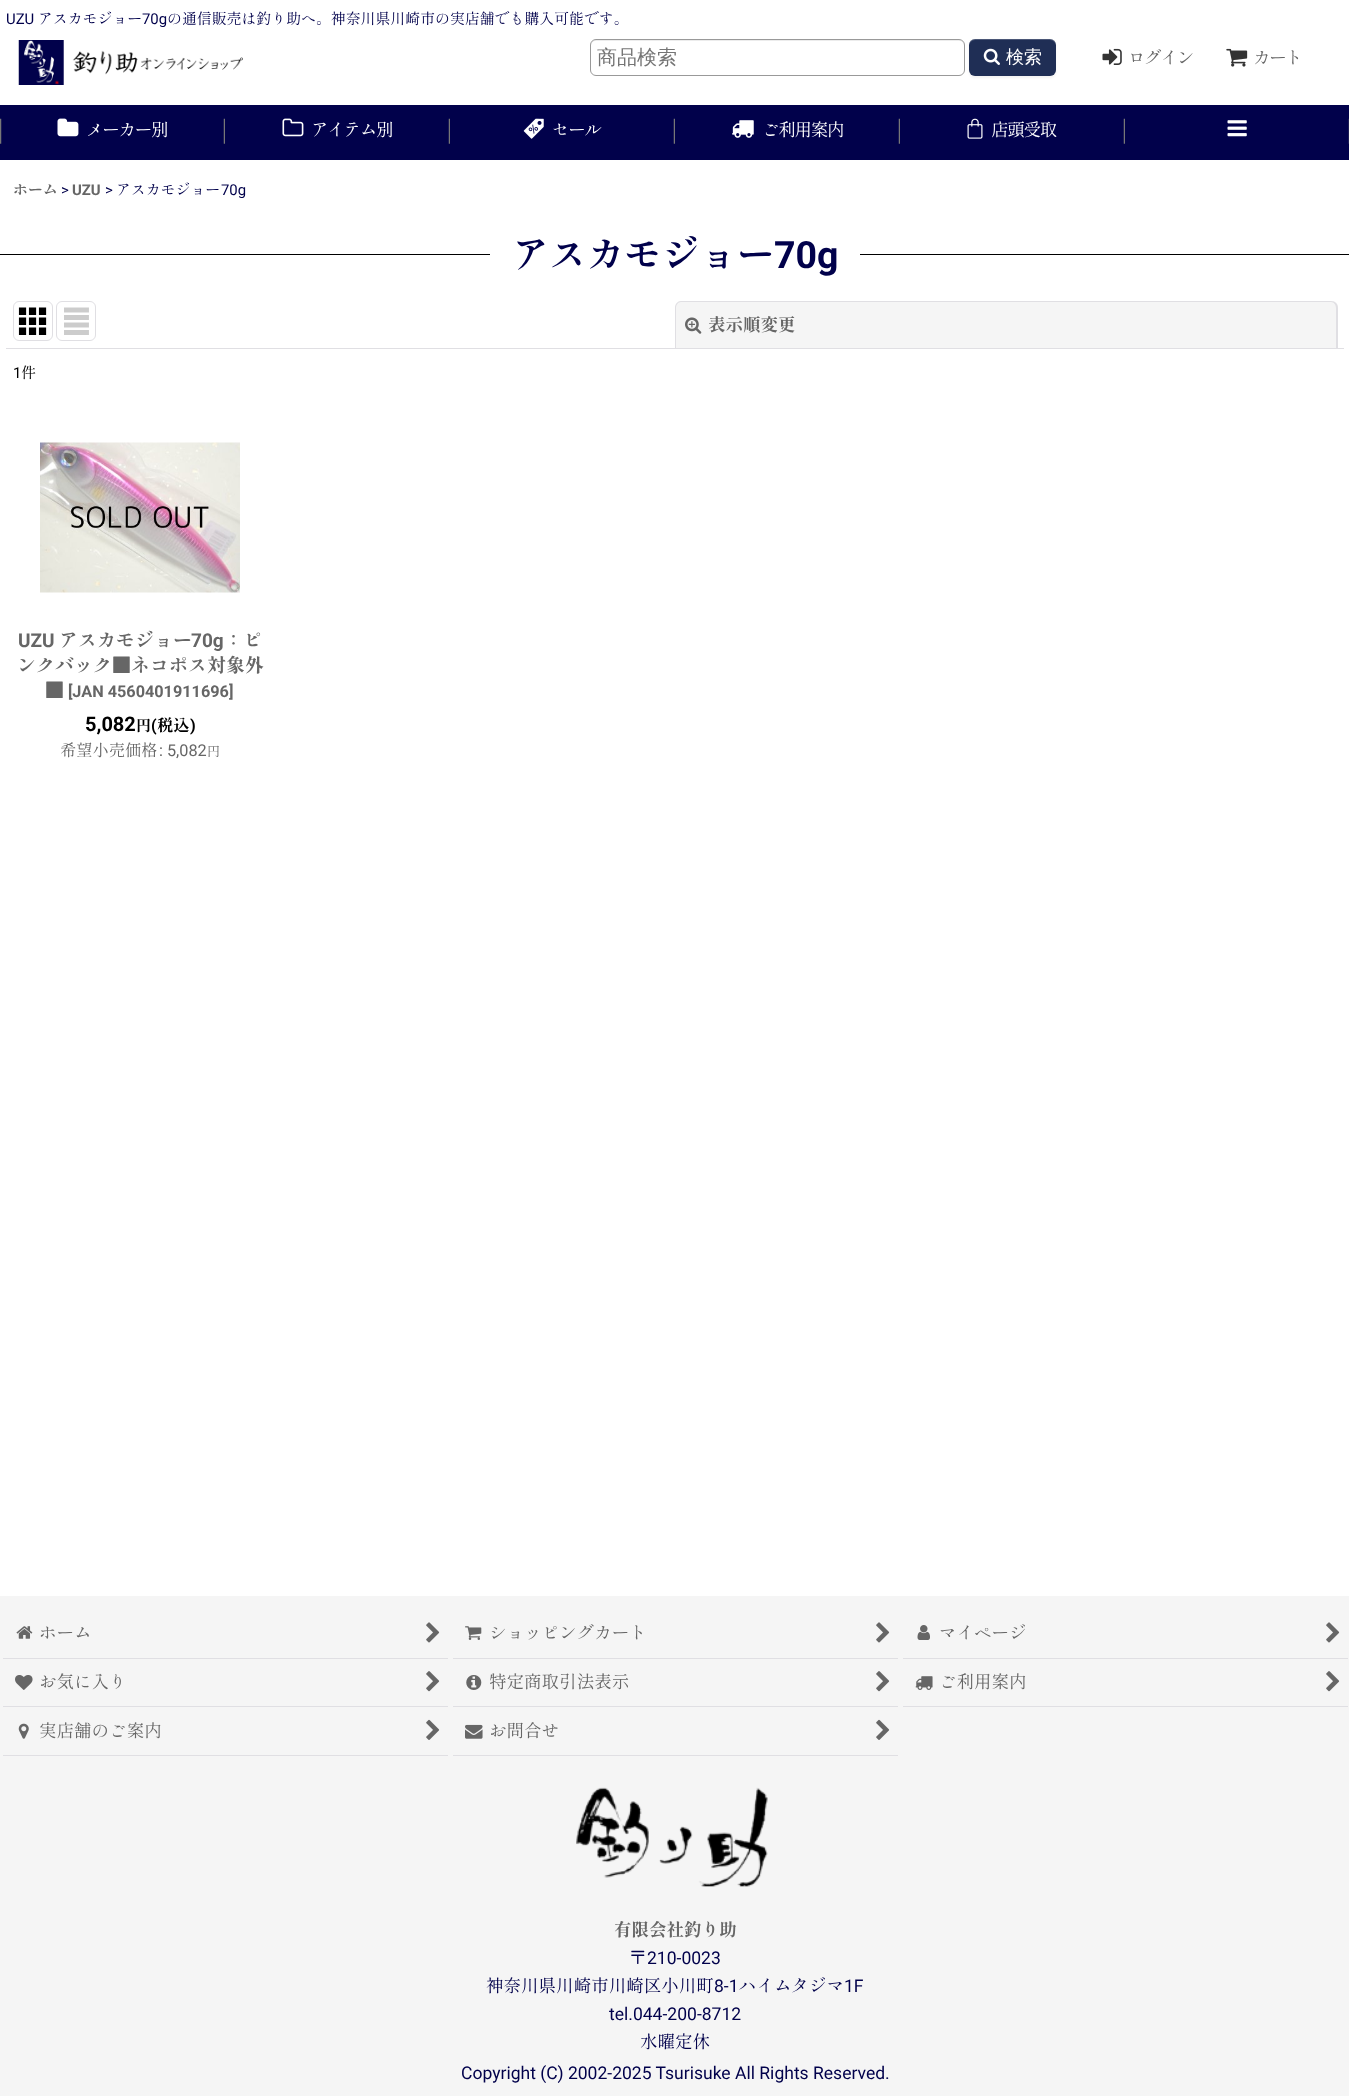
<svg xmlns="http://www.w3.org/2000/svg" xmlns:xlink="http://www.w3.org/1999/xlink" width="1349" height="2096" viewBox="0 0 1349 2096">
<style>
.cls-1{font:14.9px Roboto;fill:#01014b}
.cls-2{font:14.9px 'Shippori Mincho B1';fill:#01014b}
.cls-3{font:500 20px WenQuanYi Zen Hei;fill:#757575}
.cls-4{font:500 18px WenQuanYi Zen Hei;fill:#ffffff}
.cls-5{font:17.55px 'Shippori Mincho B1';letter-spacing:-1.25px;fill:#666666}
.cls-6{font:17.55px 'Shippori Mincho B1';letter-spacing:-1.25px;fill:#ffffff}
.cls-7{font:bold 14.9px 'Shippori Mincho B1';fill:#666666}
.cls-8{font:bold 14.9px Roboto;fill:#666666}
.cls-9{font:bold 37.5px 'Shippori Mincho B1';fill:#01014b}
.cls-10{font:bold 37.5px Roboto;fill:#01014b}
.cls-11{font:bold 17.55px 'Shippori Mincho B1';fill:#666666}
.cls-12{font:15px Roboto;fill:#000000}
.cls-13{font:15px 'Shippori Mincho B1';fill:#000000}
.cls-14{font:bold 19px Roboto;fill:#666666}
.cls-15{font:bold 19px 'Shippori Mincho B1';fill:#666666}
.cls-16{font:bold 16.25px Roboto;fill:#666666}
.cls-17{font:bold 20px Roboto;fill:#000000}
.cls-18{font:bold 15px 'Shippori Mincho B1';fill:#000000}
.cls-19{font:bold 16.25px Roboto;fill:#000000}
.cls-20{font:bold 16.25px 'Shippori Mincho B1';fill:#000000}
.cls-21{font:16.25px 'Shippori Mincho B1';fill:#666666}
.cls-22{font:16.25px Roboto;fill:#666666}
.cls-23{font:13px 'Shippori Mincho B1';fill:#666666}
.cls-24{font:17.55px 'Shippori Mincho B1';fill:#666666}
.cls-25{font:17.55px 'Shippori Mincho B1';fill:#01014b}
.cls-26{font:17.55px Roboto;fill:#01014b}
</style>
<rect width="100%" height="100%" fill="#ffffff"/>
<path fill="#ececec" d="M596 41H959C962 41 964 43 964 46V45C964 42 962 40 959 40H596C593 40 591 42 591 45V46C591 43 593 41 596 41Z"/>
<rect fill="none" stroke="#999999" x="590.5" y="39.5" width="374" height="36" rx="5.5"/>
<rect fill="#000000" fill-opacity="0.05" filter="blur(1px)" x="969" y="40" width="87" height="38" rx="6"/>
<rect fill="#1f2e55" x="969" y="39" width="87" height="37" rx="6"/>
<path fill="#ffffff" fill-opacity="0.2" d="M975 40H1050C1053 40 1056 43 1056 46C1056 36 1044 39 1038 39H988C981 39 969 36 969 46C969 43 972 40 975 40Z"/>
<image xlink:href="image0.png" x="983" y="48" width="17" height="17"/>
<image xlink:href="image1.png" x="18" y="40" width="225" height="45"/>
<image xlink:href="image2.png" x="1102" y="48" width="20" height="17"/>
<image xlink:href="image3.png" x="1226" y="48" width="22" height="19"/>
<rect fill="#01014b" x="0" y="105" width="1349" height="55"/>
<image xlink:href="image4.png" x="0" y="118" width="225" height="26"/>
<image xlink:href="image5.png" x="57" y="118" width="22" height="19"/>
<image xlink:href="image6.png" x="448" y="118" width="2" height="26"/>
<image xlink:href="image7.png" x="282" y="118" width="22" height="19"/>
<image xlink:href="image6.png" x="673" y="118" width="2" height="26"/>
<image xlink:href="image8.png" x="523" y="118" width="21" height="21"/>
<image xlink:href="image6.png" x="898" y="118" width="2" height="26"/>
<image xlink:href="image9.png" x="732" y="120" width="22" height="18"/>
<image xlink:href="image6.png" x="1123" y="118" width="2" height="26"/>
<image xlink:href="image10.png" x="967" y="118" width="16" height="21"/>
<image xlink:href="image11.png" x="1348" y="118" width="1" height="26"/>
<image xlink:href="image12.png" x="1227" y="120" width="20" height="17"/>
<rect fill="#000000" x="0" y="254" width="1349" height="1"/>
<rect fill="#ffffff" x="490" y="254" width="370" height="1"/>
<rect fill="#e0dfe3" x="6" y="348" width="1338" height="1"/>
<rect fill="none" stroke="#e0dfe3" x="13.5" y="301.5" width="39" height="39" rx="5.5"/>
<image xlink:href="image13.png" x="18" y="307" width="29" height="28"/>
<rect fill="none" stroke="#e0dfe3" x="56.5" y="301.5" width="39" height="39" rx="5.5"/>
<image xlink:href="image14.png" x="64" y="307" width="25" height="28"/>
<path fill="#f5f5f5" d="M681 301H1332C1335.5 301 1338 303.5 1338 307V348H675V307C675 303.5 677.5 301 681 301Z"/>
<path fill="#e0dfe3" fill-rule="evenodd" d="M681 301H1331C1335 301 1338 304 1338 308V348H675V308C675 304 678 301 681 301ZM681 302H1331C1334 302 1336 305 1336 308V348H676V308C676 305 678 302 681 302Z"/>
<image xlink:href="image15.png" x="685" y="317" width="17" height="17"/>
<image xlink:href="image16.png" x="40" y="442" width="200" height="151"/>
<rect fill="#f5f5f5" x="0" y="1596" width="1349" height="500"/>
<rect fill="#e0dfe3" x="3" y="1658" width="445" height="1"/>
<image xlink:href="image17.png" x="16" y="1626" width="17" height="13"/>
<image xlink:href="image18.png" x="426" y="1622" width="14" height="21"/>
<rect fill="#e0dfe3" x="453" y="1658" width="445" height="1"/>
<image xlink:href="image19.png" x="465" y="1626" width="17" height="14"/>
<image xlink:href="image18.png" x="876" y="1622" width="14" height="21"/>
<rect fill="#e0dfe3" x="903" y="1658" width="445" height="1"/>
<image xlink:href="image20.png" x="917" y="1625" width="13" height="15"/>
<image xlink:href="image18.png" x="1326" y="1622" width="14" height="21"/>
<rect fill="#e0dfe3" x="3" y="1706" width="445" height="1"/>
<image xlink:href="image21.png" x="15" y="1675" width="18" height="15"/>
<image xlink:href="image22.png" x="426" y="1671" width="14" height="21"/>
<rect fill="#e0dfe3" x="453" y="1706" width="445" height="1"/>
<image xlink:href="image23.png" x="466" y="1675" width="16" height="15"/>
<image xlink:href="image22.png" x="876" y="1671" width="14" height="21"/>
<rect fill="#e0dfe3" x="903" y="1706" width="445" height="1"/>
<image xlink:href="image24.png" x="915" y="1676" width="18" height="14"/>
<image xlink:href="image22.png" x="1326" y="1671" width="14" height="21"/>
<rect fill="#e0dfe3" x="3" y="1755" width="445" height="1"/>
<image xlink:href="image25.png" x="18" y="1723" width="11" height="16"/>
<image xlink:href="image26.png" x="426" y="1719" width="14" height="21"/>
<rect fill="#e0dfe3" x="453" y="1755" width="445" height="1"/>
<image xlink:href="image27.png" x="465" y="1724" width="18" height="15"/>
<image xlink:href="image26.png" x="876" y="1719" width="14" height="21"/>
<image xlink:href="image28.png" x="576" y="1787" width="192" height="100"/>
<text class="cls-1" x="6" y="24">UZU</text>
<text class="cls-2" x="38" y="24">アスカモジョー</text>
<text class="cls-1" x="142" y="24">70g</text>
<text class="cls-2" x="167" y="24">の通信販売は釣り助へ。神奈川県川崎市の実店舗でも購入可能です。</text>
<text class="cls-3" x="597" y="64">商品検索</text>
<text class="cls-4" x="1006" y="63">検索</text>
<text class="cls-5" x="1128" y="64">ログイン</text>
<text class="cls-5" x="1253" y="64">カート</text>
<text class="cls-6" x="86" y="136">メーカー別</text>
<text class="cls-6" x="311" y="136">アイテム別</text>
<text class="cls-6" x="552" y="136">セール</text>
<text class="cls-6" x="762" y="136">ご利用案内</text>
<text class="cls-6" x="991" y="136">店頭受取</text>
<text class="cls-7" x="13" y="195">ホーム</text>
<text class="cls-1" x="61" y="195">&gt;</text>
<text class="cls-8" x="72" y="195">UZU</text>
<text class="cls-1" x="105" y="195">&gt;</text>
<text class="cls-2" x="116" y="195">アスカモジョー</text>
<text class="cls-1" x="221" y="195">70g</text>
<text class="cls-9" x="512" y="268">アスカモジョー</text>
<text class="cls-10" x="774" y="268">70g</text>
<text class="cls-11" x="708" y="331">表示順変更</text>
<text class="cls-12" x="13" y="378">1</text>
<text class="cls-13" x="21" y="378">件</text>
<text class="cls-14" x="18" y="647">UZU</text>
<text class="cls-15" x="59" y="647">アスカモジョー</text>
<text class="cls-14" x="191" y="647">70g</text>
<text class="cls-15" x="224" y="647">：ピ</text>
<text class="cls-15" x="17" y="672">ンクバック■ネコポス対象外</text>
<text class="cls-15" x="45" y="697">■</text>
<text class="cls-16" x="68" y="697">[JAN 4560401911696]</text>
<text class="cls-17" x="85" y="731">5,082</text>
<text class="cls-18" x="136" y="731">円</text>
<text class="cls-19" x="151" y="731">(</text>
<text class="cls-20" x="157" y="731">税込</text>
<text class="cls-19" x="190" y="731">)</text>
<text class="cls-21" x="60" y="756">希望小売価格</text>
<text class="cls-22" x="159" y="756">: 5,082</text>
<text class="cls-23" x="207" y="756">円</text>
<text class="cls-24" x="39" y="1639">ホーム</text>
<text class="cls-24" x="489" y="1639">ショッピングカート</text>
<text class="cls-24" x="939" y="1639">マイページ</text>
<text class="cls-24" x="39" y="1688">お気に入り</text>
<text class="cls-24" x="489" y="1688">特定商取引法表示</text>
<text class="cls-24" x="939" y="1688">ご利用案内</text>
<text class="cls-24" x="39" y="1737">実店舗のご案内</text>
<text class="cls-24" x="489" y="1737">お問合せ</text>
<text class="cls-11" x="614" y="1936">有限会社釣り助</text>
<text class="cls-25" x="629" y="1964">〒</text>
<text class="cls-26" x="647" y="1964">210-0023</text>
<text class="cls-25" x="486" y="1992">神奈川県川崎市川崎区小川町</text>
<text class="cls-26" x="714" y="1992">8-1</text>
<text class="cls-25" x="739" y="1992">ハイムタジマ</text>
<text class="cls-26" x="844" y="1992">1F</text>
<text class="cls-26" x="609" y="2020">tel.044-200-8712</text>
<text class="cls-25" x="640" y="2048">水曜定休</text>
<text class="cls-26" x="461" y="2079">Copyright (C) 2002-2025 Tsurisuke All Rights Reserved.</text>
</svg>
